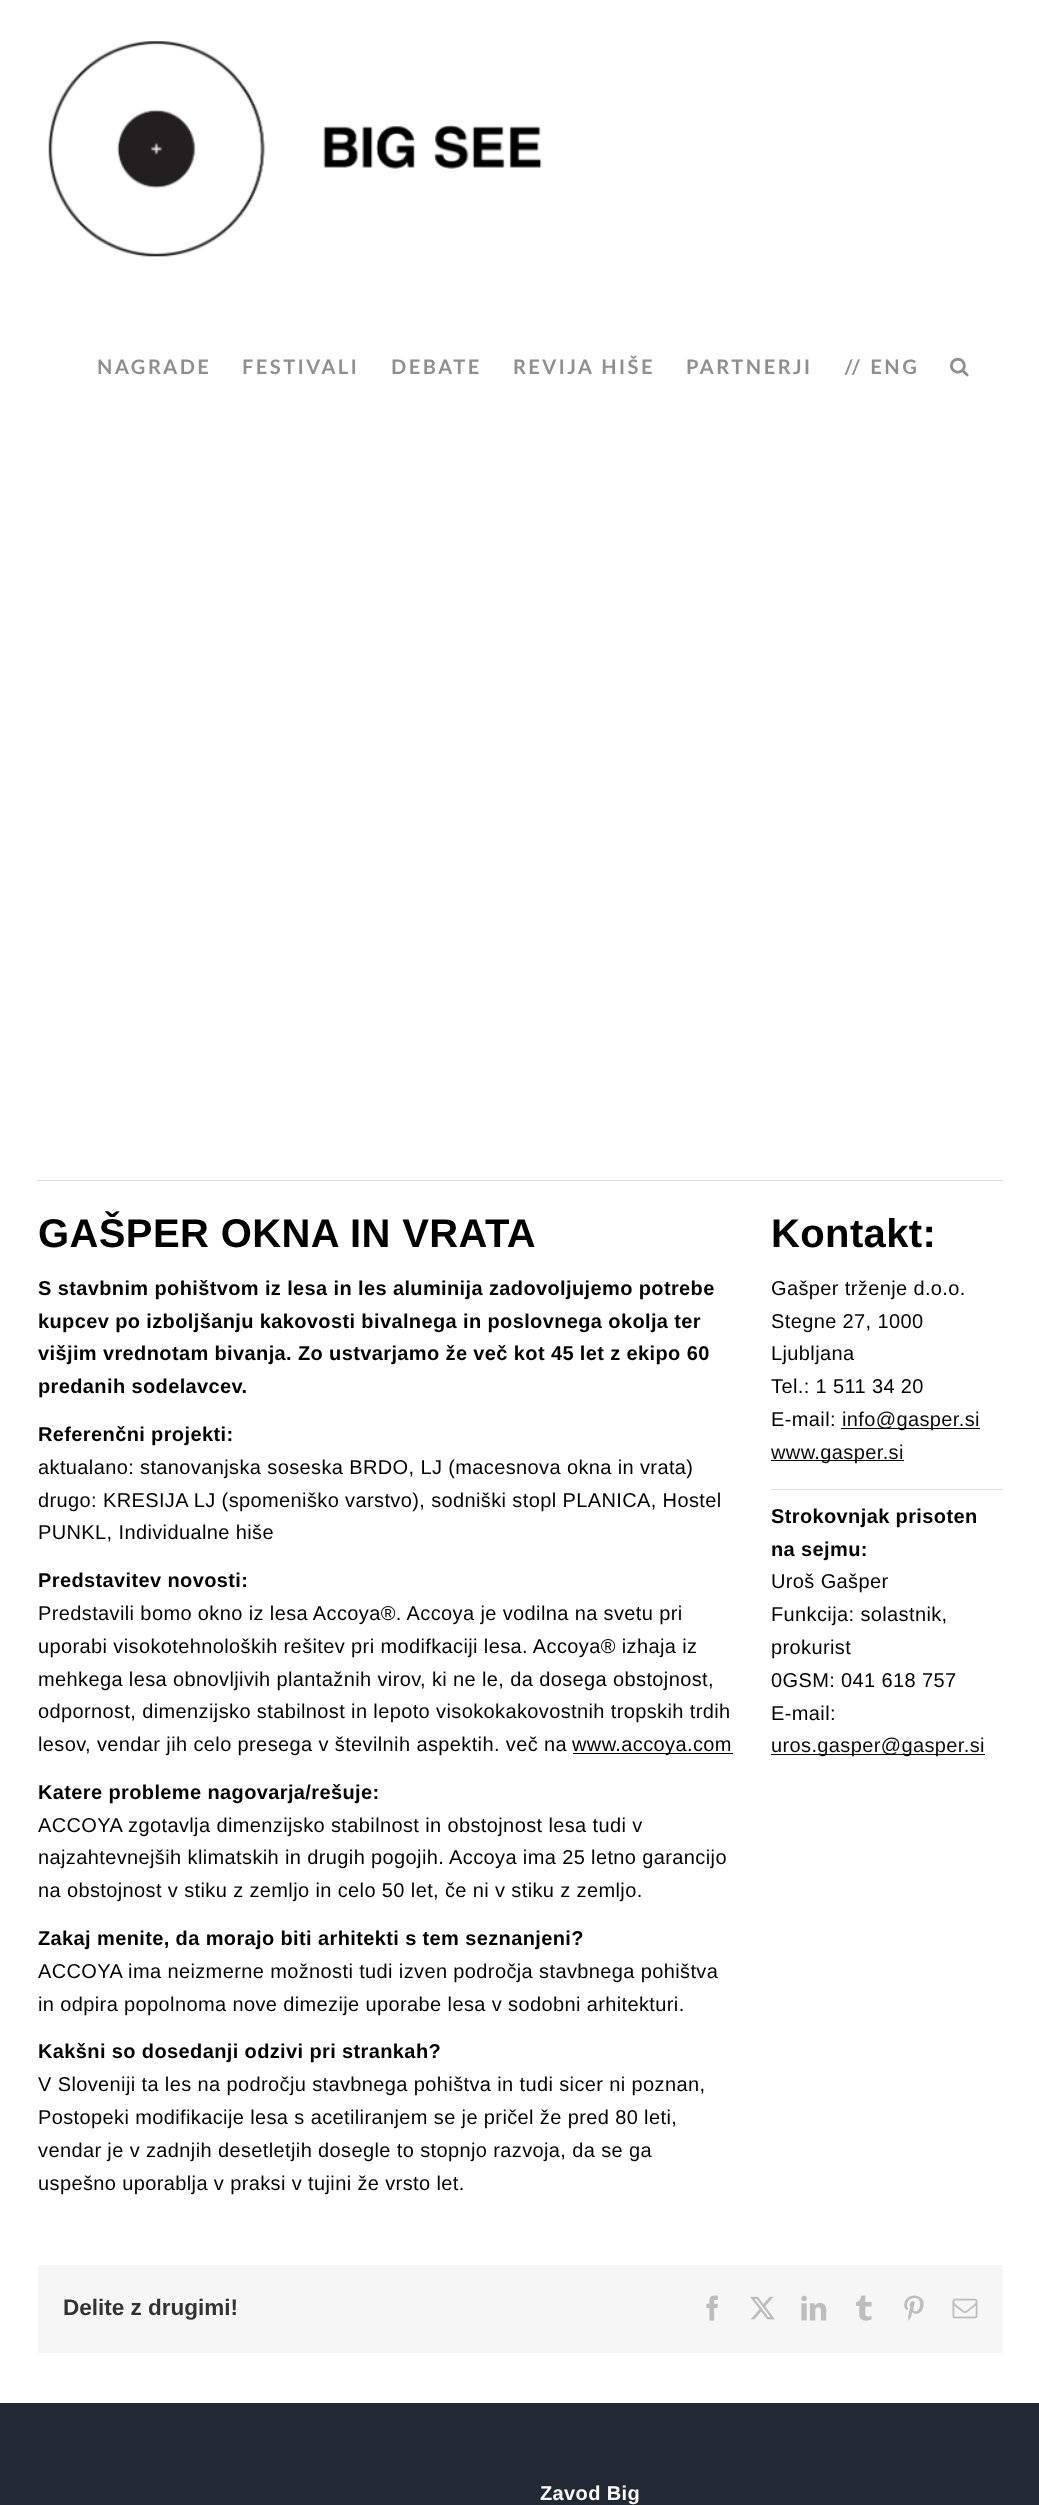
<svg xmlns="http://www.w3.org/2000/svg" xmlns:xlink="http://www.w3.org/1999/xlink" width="1039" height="2505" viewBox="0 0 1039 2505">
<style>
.cls-1{font:bold 20px Lato;letter-spacing:2.5px;fill:#8f8f8f}
.cls-2{font:bold 40px Liberation Sans;letter-spacing:0.38px;fill:#000000}
.cls-3{font:bold 20px Liberation Sans;letter-spacing:0.38px;fill:#000000}
.cls-4{font:20px Liberation Sans;letter-spacing:0.38px;fill:#000000}
.cls-5{font:20px Liberation Sans;letter-spacing:0.38px;fill:#0a0a0a}
.cls-6{font:bold 22.5px Liberation Sans;fill:#333333}
.cls-7{font:bold 20px Liberation Sans;letter-spacing:0.38px;fill:#ffffff}
</style>
<rect width="100%" height="100%" fill="#ffffff"/>
<image xlink:href="image0.png" x="48" y="41" width="494" height="216"/>
<image xlink:href="image1.png" x="950" y="357" width="19" height="20"/>
<rect fill="#e0dede" x="38" y="1180" width="965" height="1"/>
<rect fill="#050505" x="573" y="1753" width="160" height="1"/>
<rect fill="#0a0a0a" x="841" y="1428" width="139" height="1"/>
<rect fill="#0a0a0a" x="771" y="1460" width="133" height="1"/>
<rect fill="#e0dede" x="771" y="1489" width="232" height="1"/>
<rect fill="#0a0a0a" x="771" y="1754" width="214" height="1"/>
<rect fill="#f6f6f6" x="38" y="2265" width="965" height="88"/>
<image xlink:href="image2.png" x="706" y="2295" width="12" height="26"/>
<image xlink:href="image3.png" x="750" y="2296" width="25" height="24"/>
<image xlink:href="image4.png" x="801" y="2295" width="26" height="26"/>
<image xlink:href="image5.png" x="856" y="2295" width="16" height="26"/>
<image xlink:href="image6.png" x="904" y="2295" width="20" height="26"/>
<image xlink:href="image7.png" x="952" y="2298" width="26" height="21"/>
<rect fill="#212934" x="0" y="2403" width="1039" height="102"/>
<text class="cls-1" x="97" y="374">NAGRADE</text>
<text class="cls-1" x="242" y="374">FESTIVALI</text>
<text class="cls-1" x="391" y="374">DEBATE</text>
<text class="cls-1" x="513" y="374">REVIJA HIŠE</text>
<text class="cls-1" x="686" y="374">PARTNERJI</text>
<text class="cls-1" x="844" y="374">// ENG</text>
<text class="cls-2" x="38" y="1247">GAŠPER OKNA IN VRATA</text>
<text class="cls-3"><tspan x="38" y="1295">S stavbnim pohištvom iz lesa in les aluminija zadovoljujemo potrebe</tspan><tspan x="38" y="1328">kupcev po izboljšanju kakovosti bivalnega in poslovnega okolja ter</tspan><tspan x="38" y="1360">višjim vrednotam bivanja. Zo ustvarjamo že več kot 45 let z ekipo 60</tspan><tspan x="38" y="1393">predanih sodelavcev.</tspan></text>
<text class="cls-3" x="38" y="1441">Referenčni projekti:</text>
<text class="cls-4"><tspan x="38" y="1474">aktualano: stanovanjska soseska BRDO, LJ (macesnova okna in vrata)</tspan><tspan x="38" y="1507">drugo: KRESIJA LJ (spomeniško varstvo), sodniški stopl PLANICA, Hostel</tspan><tspan x="38" y="1539">PUNKL, Individualne hiše</tspan></text>
<text class="cls-3" x="38" y="1587">Predstavitev novosti:</text>
<text class="cls-4"><tspan x="38" y="1620">Predstavili bomo okno iz lesa Accoya®. Accoya je vodilna na svetu pri</tspan><tspan x="38" y="1653">uporabi visokotehnoloških rešitev pri modifkaciji lesa. Accoya® izhaja iz</tspan><tspan x="38" y="1686">mehkega lesa obnovljivih plantažnih virov, ki ne le, da dosega obstojnost,</tspan><tspan x="38" y="1718">odpornost, dimenzijsko stabilnost in lepoto visokokakovostnih tropskih trdih</tspan><tspan x="38" y="1751">lesov, vendar jih celo presega v številnih aspektih. več na</tspan></text>
<text class="cls-4" x="572" y="1751">www.accoya.com</text>
<text class="cls-3" x="38" y="1799">Katere probleme nagovarja/rešuje:</text>
<text class="cls-4"><tspan x="38" y="1832">ACCOYA zgotavlja dimenzijsko stabilnost in obstojnost lesa tudi v</tspan><tspan x="38" y="1864">najzahtevnejših klimatskih in drugih pogojih. Accoya ima 25 letno garancijo</tspan><tspan x="38" y="1897">na obstojnost v stiku z zemljo in celo 50 let, če ni v stiku z zemljo.</tspan></text>
<text class="cls-3" x="38" y="1945">Zakaj menite, da morajo biti arhitekti s tem seznanjeni?</text>
<text class="cls-4"><tspan x="38" y="1978">ACCOYA ima neizmerne možnosti tudi izven področja stavbnega pohištva</tspan><tspan x="38" y="2011">in odpira popolnoma nove dimezije uporabe lesa v sodobni arhitekturi.</tspan></text>
<text class="cls-3" x="38" y="2058">Kakšni so dosedanji odzivi pri strankah?</text>
<text class="cls-4"><tspan x="38" y="2091">V Sloveniji ta les na področju stavbnega pohištva in tudi sicer ni poznan,</tspan><tspan x="38" y="2124">Postopeki modifikacije lesa s acetiliranjem se je pričel že pred 80 leti,</tspan><tspan x="38" y="2157">vendar je v zadnjih desetletjih dosegle to stopnjo razvoja, da se ga</tspan><tspan x="38" y="2190">uspešno uporablja v praksi v tujini že vrsto let.</tspan></text>
<text class="cls-2" x="771" y="1247">Kontakt:</text>
<text class="cls-4"><tspan x="771" y="1295">Gašper trženje d.o.o.</tspan><tspan x="771" y="1328">Stegne 27, 1000</tspan><tspan x="771" y="1360">Ljubljana</tspan><tspan x="771" y="1393">Tel.: 1 511 34 20</tspan><tspan x="771" y="1426">E-mail:</tspan></text>
<text class="cls-5" x="842" y="1426">info@gasper.si</text>
<text class="cls-5" x="771" y="1459">www.gasper.si</text>
<text class="cls-3"><tspan x="771" y="1523">Strokovnjak prisoten</tspan><tspan x="771" y="1556">na sejmu:</tspan></text>
<text class="cls-4"><tspan x="771" y="1588">Uroš Gašper</tspan><tspan x="771" y="1621">Funkcija: solastnik,</tspan><tspan x="771" y="1654">prokurist</tspan><tspan x="771" y="1687">0GSM: 041 618 757</tspan><tspan x="771" y="1720">E-mail:</tspan></text>
<text class="cls-5" x="771" y="1752">uros.gasper@gasper.si</text>
<text class="cls-6" x="63" y="2315">Delite z drugimi!</text>
<text class="cls-7" x="540" y="2500">Zavod Big</text>
</svg>
